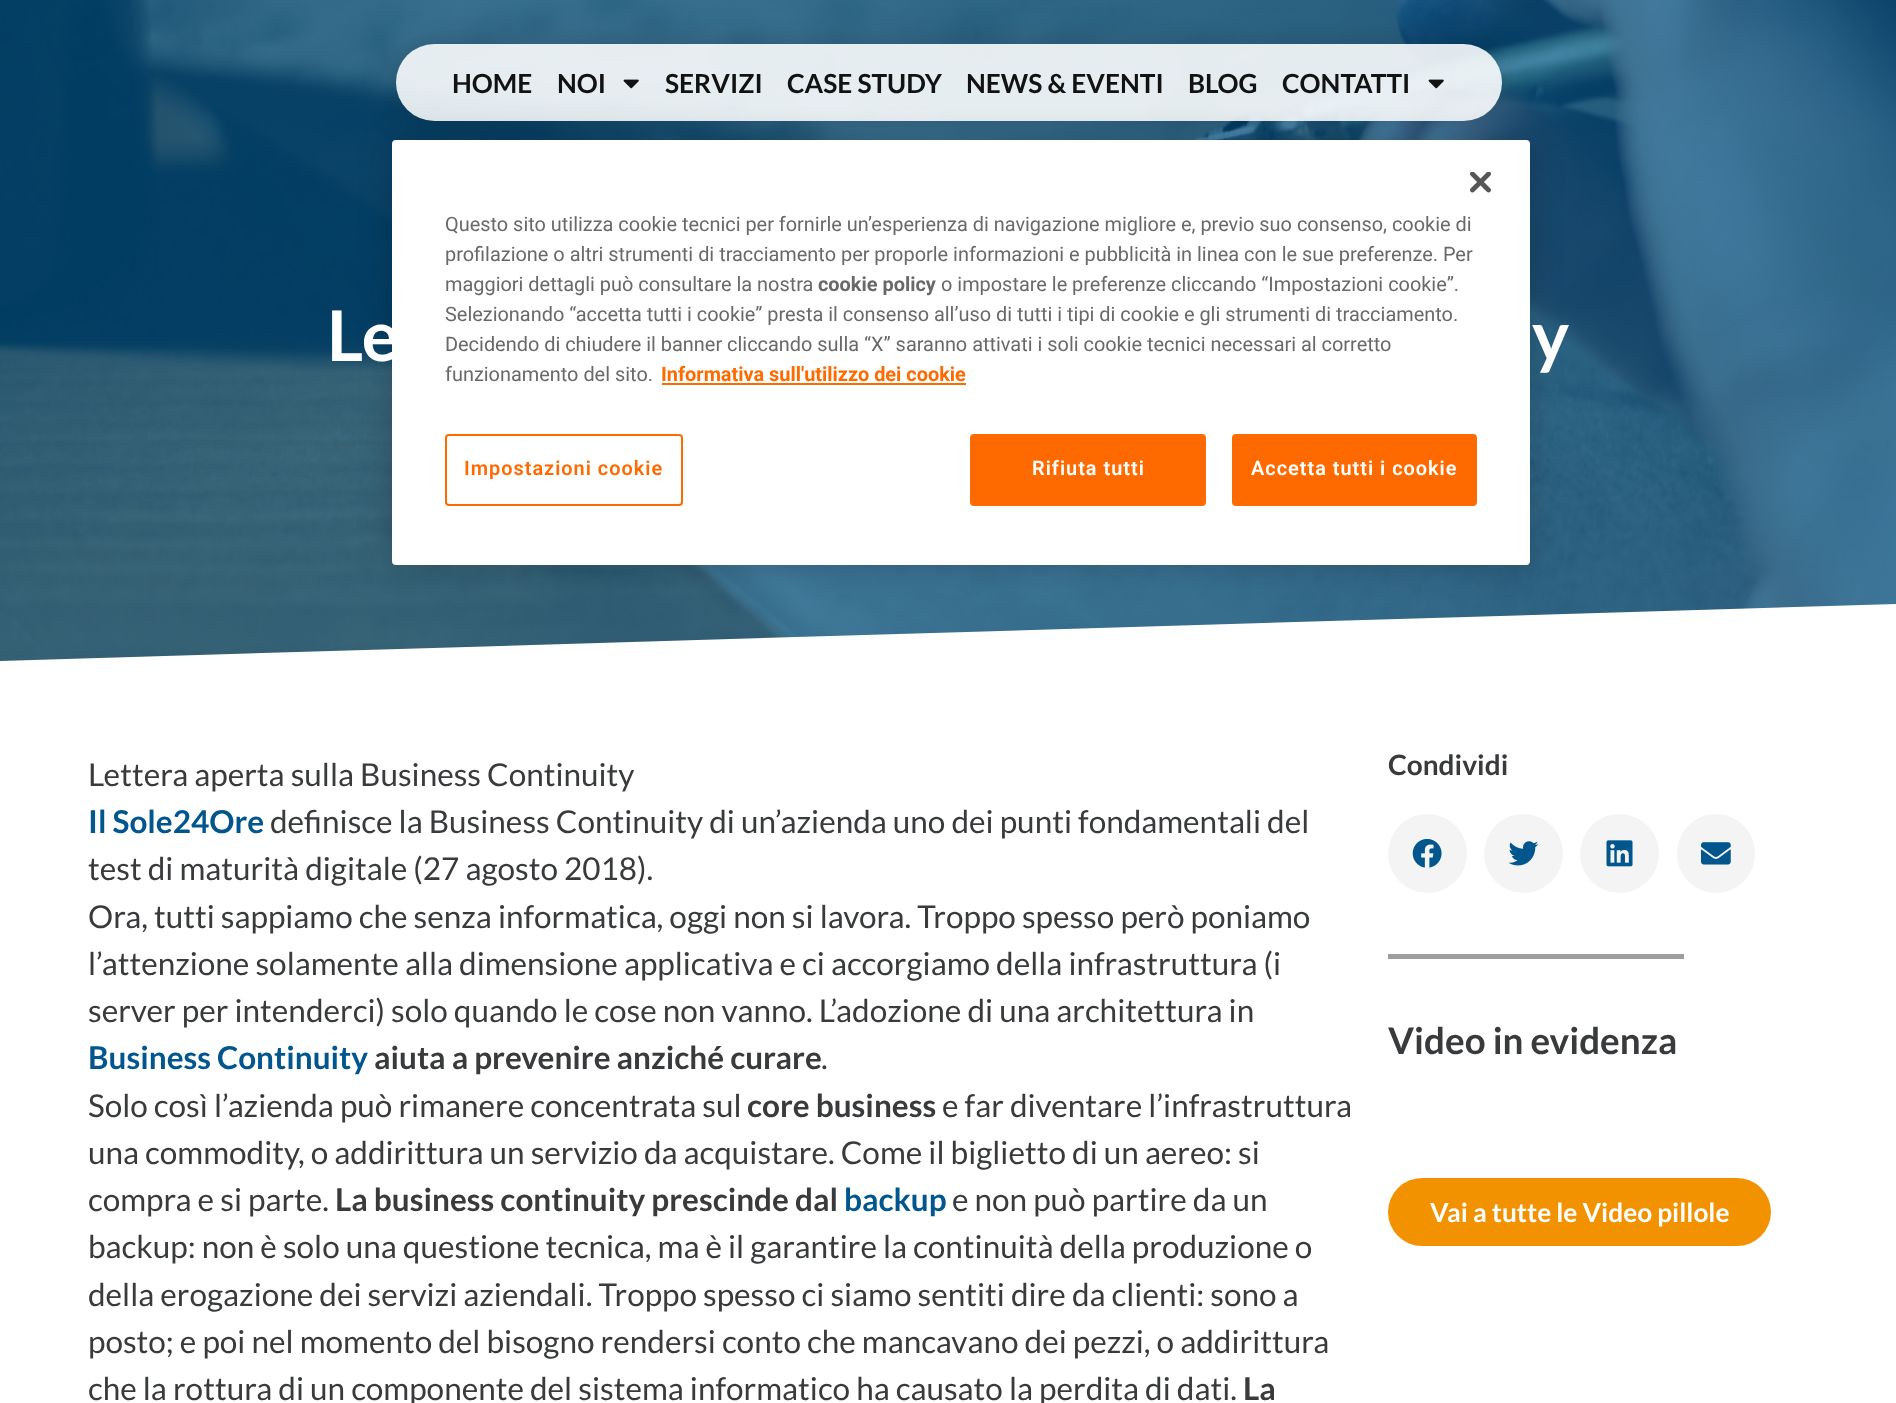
<svg xmlns="http://www.w3.org/2000/svg" xmlns:xlink="http://www.w3.org/1999/xlink" width="1896" height="1403" viewBox="0 0 1896 1403">
<style>
.cls-1{font:bold 26.25px Lato;fill:#121212}
.cls-2{font:19.92px Roboto;fill:#696969}
.cls-3{font:bold 19.92px Roboto;fill:#696969}
.cls-4{font:bold 19.92px Roboto;fill:#ff6a00}
.cls-5{font:600 19.92px Roboto;letter-spacing:1px;fill:#ff6a00}
.cls-6{font:600 19.92px Roboto;letter-spacing:1px;fill:#ffffff}
.cls-7{font:bold 70px Lato;fill:#ffffff}
.cls-8{font:31.5px Lato;fill:#383a3c}
.cls-9{font:bold 31.5px Lato;fill:#00568d}
.cls-10{font:bold 31.5px Lato;fill:#383a3c}
.cls-11{font:bold 28px Lato;fill:#383a3c}
.cls-12{font:bold 36.75px Lato;fill:#383a3c}
.cls-13{font:bold 26.25px Lato;fill:#ffffff}
</style>
<defs>
<clipPath id="clip1"><path d="M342 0H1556V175H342ZM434.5 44H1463.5C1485 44 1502 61 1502 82.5C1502 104 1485 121 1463.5 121H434.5C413 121 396 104 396 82.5C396 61 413 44 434.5 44Z" clip-rule="evenodd"/></clipPath>
</defs>
<rect width="100%" height="100%" fill="#ffffff"/>
<image xlink:href="image3.png" x="0" y="0" width="1896" height="661"/>
<g clip-path="url(#clip1)">
<rect fill="#000000" fill-opacity="0.2" filter="blur(17.5px)" x="396" y="44" width="1106" height="77" rx="38.5"/>
</g>
<rect fill="#ffffff" fill-opacity="0.88" x="396" y="44" width="1106" height="77" rx="38.5"/>
<image xlink:href="image0.png" x="623" y="79" width="16" height="10"/>
<image xlink:href="image1.png" x="1428" y="79" width="16" height="10"/>
<path fill="#ffffff" d="M-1 661V665H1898V604Z"/>
<rect fill="#000000" fill-opacity="0.2" filter="blur(16px)" x="392" y="140" width="1138" height="425" rx="4"/>
<rect fill="#ffffff" x="392" y="140" width="1138" height="425" rx="4"/>
<image xlink:href="image2.png" x="1470" y="172" width="21" height="21"/>
<rect fill="#ff6a00" x="662" y="383" width="304" height="2"/>
<rect fill="none" stroke="#ff6a00" stroke-width="2" x="446" y="435" width="236" height="70" rx="3"/>
<rect fill="#ff6a00" stroke="#ff6a00" stroke-width="2" x="971" y="435" width="234" height="70" rx="3"/>
<rect fill="#ff6a00" stroke="#ff6a00" stroke-width="2" x="1233" y="435" width="243" height="70" rx="3"/>
<circle fill="#f4f4f4" cx="1427.5" cy="853.5" r="39.5"/>
<image xlink:href="image4.png" x="1412" y="838" width="30" height="30"/>
<circle fill="#f4f4f4" cx="1523.5" cy="853.5" r="39.5"/>
<image xlink:href="image5.png" x="1508" y="841" width="31" height="25"/>
<circle fill="#f4f4f4" cx="1619.5" cy="853.5" r="39.5"/>
<image xlink:href="image6.png" x="1606" y="840" width="27" height="27"/>
<rect fill="#f4f4f4" x="1677" y="814" width="78" height="79" rx="39"/>
<image xlink:href="image7.png" x="1701" y="842" width="30" height="23"/>
<rect fill="#9e9e9e" x="1388" y="954" width="296" height="5"/>
<rect fill="#f39200" x="1388" y="1178" width="383" height="68" rx="34"/>
<text class="cls-1" x="452" y="93">HOME</text>
<text class="cls-1" x="557" y="93">NOI</text>
<text class="cls-1" x="665" y="93">SERVIZI</text>
<text class="cls-1" x="787" y="93">CASE STUDY</text>
<text class="cls-1" x="966" y="93">NEWS &amp; EVENTI</text>
<text class="cls-1" x="1188" y="93">BLOG</text>
<text class="cls-1" x="1282" y="93">CONTATTI</text>
<text class="cls-2"><tspan x="445" y="231">Questo sito utilizza cookie tecnici per fornirle un’esperienza di navigazione migliore e, previo suo consenso, cookie di</tspan><tspan x="445" y="261">profilazione o altri strumenti di tracciamento per proporle informazioni e pubblicità in linea con le sue preferenze. Per</tspan><tspan x="445" y="291">maggiori dettagli può consultare la nostra</tspan></text>
<text class="cls-3" x="818" y="291">cookie policy</text>
<text class="cls-2" x="941" y="291">o impostare le preferenze cliccando “Impostazioni cookie”.</text>
<text class="cls-2"><tspan x="445" y="321">Selezionando “accetta tutti i cookie” presta il consenso all’uso di tutti i tipi di cookie e gli strumenti di tracciamento.</tspan><tspan x="445" y="351">Decidendo di chiudere il banner cliccando sulla “X” saranno attivati i soli cookie tecnici necessari al corretto</tspan><tspan x="445" y="381">funzionamento del sito.</tspan></text>
<text class="cls-4" x="661" y="381">Informativa sull'utilizzo dei cookie</text>
<text class="cls-5" x="464" y="475">Impostazioni cookie</text>
<text class="cls-6" x="1032" y="475">Rifiuta tutti</text>
<text class="cls-6" x="1251" y="475">Accetta tutti i cookie</text>
<text class="cls-7" x="327" y="361">Le</text>
<text class="cls-7" x="1532" y="361">y</text>
<text class="cls-8" x="88" y="786">Lettera aperta sulla Business Continuity</text>
<text class="cls-9" x="88" y="833">Il Sole24Ore</text>
<text class="cls-8" x="270" y="833">definisce la Business Continuity di un’azienda uno dei punti fondamentali del</text>
<text class="cls-8"><tspan x="88" y="880">test di maturità digitale (27 agosto 2018).</tspan><tspan x="88" y="928">Ora, tutti sappiamo che senza informatica, oggi non si lavora. Troppo spesso però poniamo</tspan><tspan x="88" y="975">l’attenzione solamente alla dimensione applicativa e ci accorgiamo della infrastruttura (i</tspan><tspan x="88" y="1022">server per intenderci) solo quando le cose non vanno. L’adozione di una architettura in</tspan></text>
<text class="cls-9" x="88" y="1069">Business Continuity</text>
<text class="cls-10" x="374" y="1069">aiuta a prevenire anziché curare</text>
<text class="cls-8" x="821" y="1069">.</text>
<text class="cls-8" x="88" y="1117">Solo così l’azienda può rimanere concentrata sul</text>
<text class="cls-10" x="747" y="1117">core business</text>
<text class="cls-8" x="942" y="1117">e far diventare l’infrastruttura</text>
<text class="cls-8"><tspan x="88" y="1164">una commodity, o addirittura un servizio da acquistare. Come il biglietto di un aereo: si</tspan><tspan x="88" y="1211">compra e si parte.</tspan></text>
<text class="cls-10" x="335" y="1211">La business continuity prescinde dal</text>
<text class="cls-9" x="844" y="1211">backup</text>
<text class="cls-8" x="952" y="1211">e non può partire da un</text>
<text class="cls-8"><tspan x="88" y="1258">backup: non è solo una questione tecnica, ma è il garantire la continuità della produzione o</tspan><tspan x="88" y="1306">della erogazione dei servizi aziendali. Troppo spesso ci siamo sentiti dire da clienti: sono a</tspan><tspan x="88" y="1353">posto; e poi nel momento del bisogno rendersi conto che mancavano dei pezzi, o addirittura</tspan><tspan x="88" y="1400">che la rottura di un componente del sistema informatico ha causato la perdita di dati.</tspan></text>
<text class="cls-10" x="1243" y="1400">La</text>
<text class="cls-11" x="1388" y="775">Condividi</text>
<text class="cls-12" x="1388" y="1054">Video in evidenza</text>
<text class="cls-13" x="1430" y="1222">Vai a tutte le Video pillole</text>
</svg>
